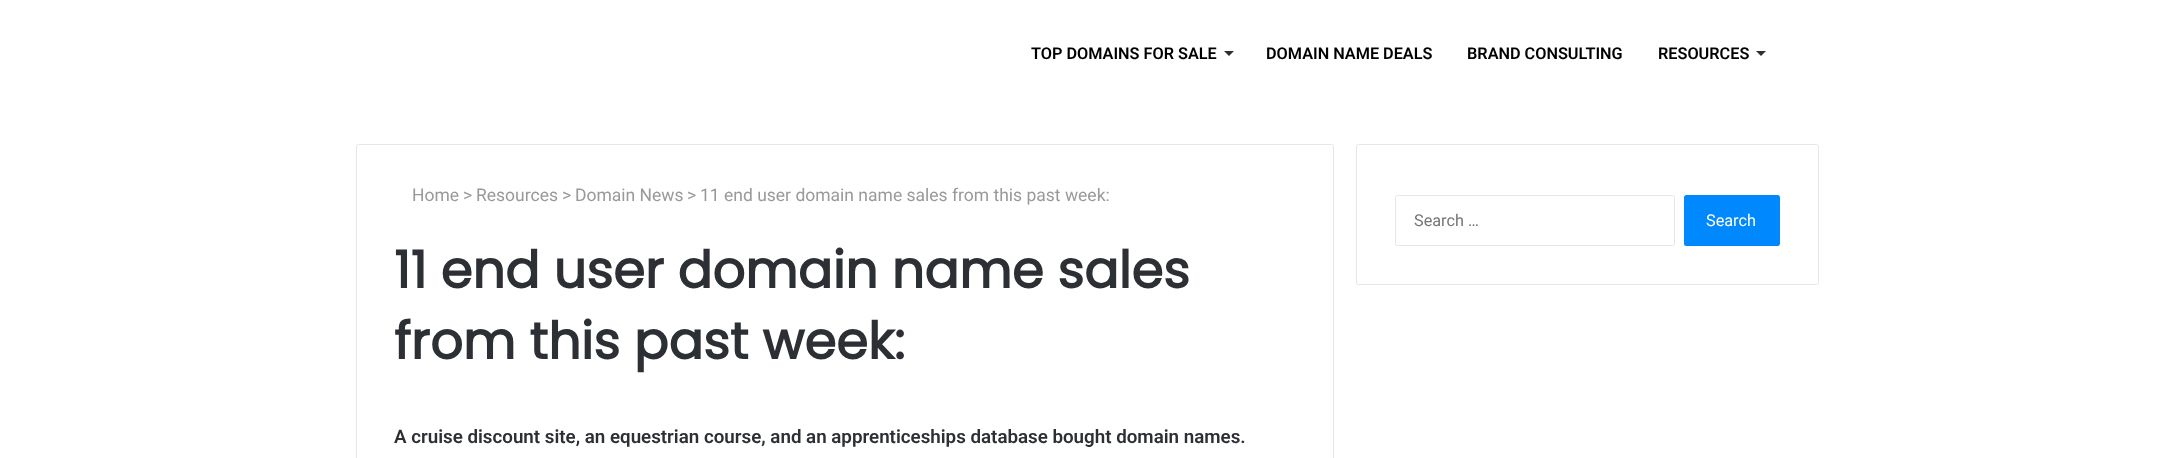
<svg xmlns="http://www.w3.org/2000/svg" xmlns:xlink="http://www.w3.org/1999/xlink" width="2173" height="458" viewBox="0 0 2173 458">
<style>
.cls-1{font:600 16.25px Roboto;fill:#000000}
.cls-2{font:17.5px Roboto;fill:#999999}
.cls-3{font:bold 51.25px Poppins;fill:#2c2f34}
.cls-4{font:600 18.75px Roboto;fill:#2c2f34}
.cls-5{font:16.25px Roboto;fill:#757575}
.cls-6{font:16.25px Roboto;fill:#ffffff}
</style>
<rect width="100%" height="100%" fill="#ffffff"/>
<path fill="#2c2f34" d="M1224 51H1234L1229 56Z"/>
<path fill="#2c2f34" d="M1756 51H1766L1761 56Z"/>
<rect fill="none" stroke="#e6e6e6" x="356.5" y="144.5" width="977" height="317" rx="2"/>
<rect fill="none" stroke="#e6e6e6" x="1356.5" y="144.5" width="462" height="140" rx="2"/>
<rect fill="none" stroke="#e6e6e6" x="1395.5" y="195.5" width="279" height="50" rx="2"/>
<rect fill="#0088ff" x="1684" y="195" width="96" height="51" rx="2.5"/>
<text class="cls-1" x="1031" y="59">TOP DOMAINS FOR SALE</text>
<text class="cls-1" x="1266" y="59">DOMAIN NAME DEALS</text>
<text class="cls-1" x="1467" y="59">BRAND CONSULTING</text>
<text class="cls-1" x="1658" y="59">RESOURCES</text>
<text class="cls-2" x="412" y="201">Home</text>
<text class="cls-2" x="463" y="201">&gt;</text>
<text class="cls-2" x="476" y="201">Resources</text>
<text class="cls-2" x="562" y="201">&gt;</text>
<text class="cls-2" x="575" y="201">Domain News</text>
<text class="cls-2" x="687" y="201">&gt;</text>
<text class="cls-2" x="700" y="201">11 end user domain name sales from this past week:</text>
<text class="cls-3"><tspan x="394" y="288">11 end user domain name sales</tspan><tspan x="394" y="359">from this past week:</tspan></text>
<text class="cls-4" x="394" y="443">A cruise discount site, an equestrian course, and an apprenticeships database bought domain names.</text>
<text class="cls-5" x="1414" y="226">Search …</text>
<text class="cls-6" x="1706" y="226">Search</text>
</svg>
